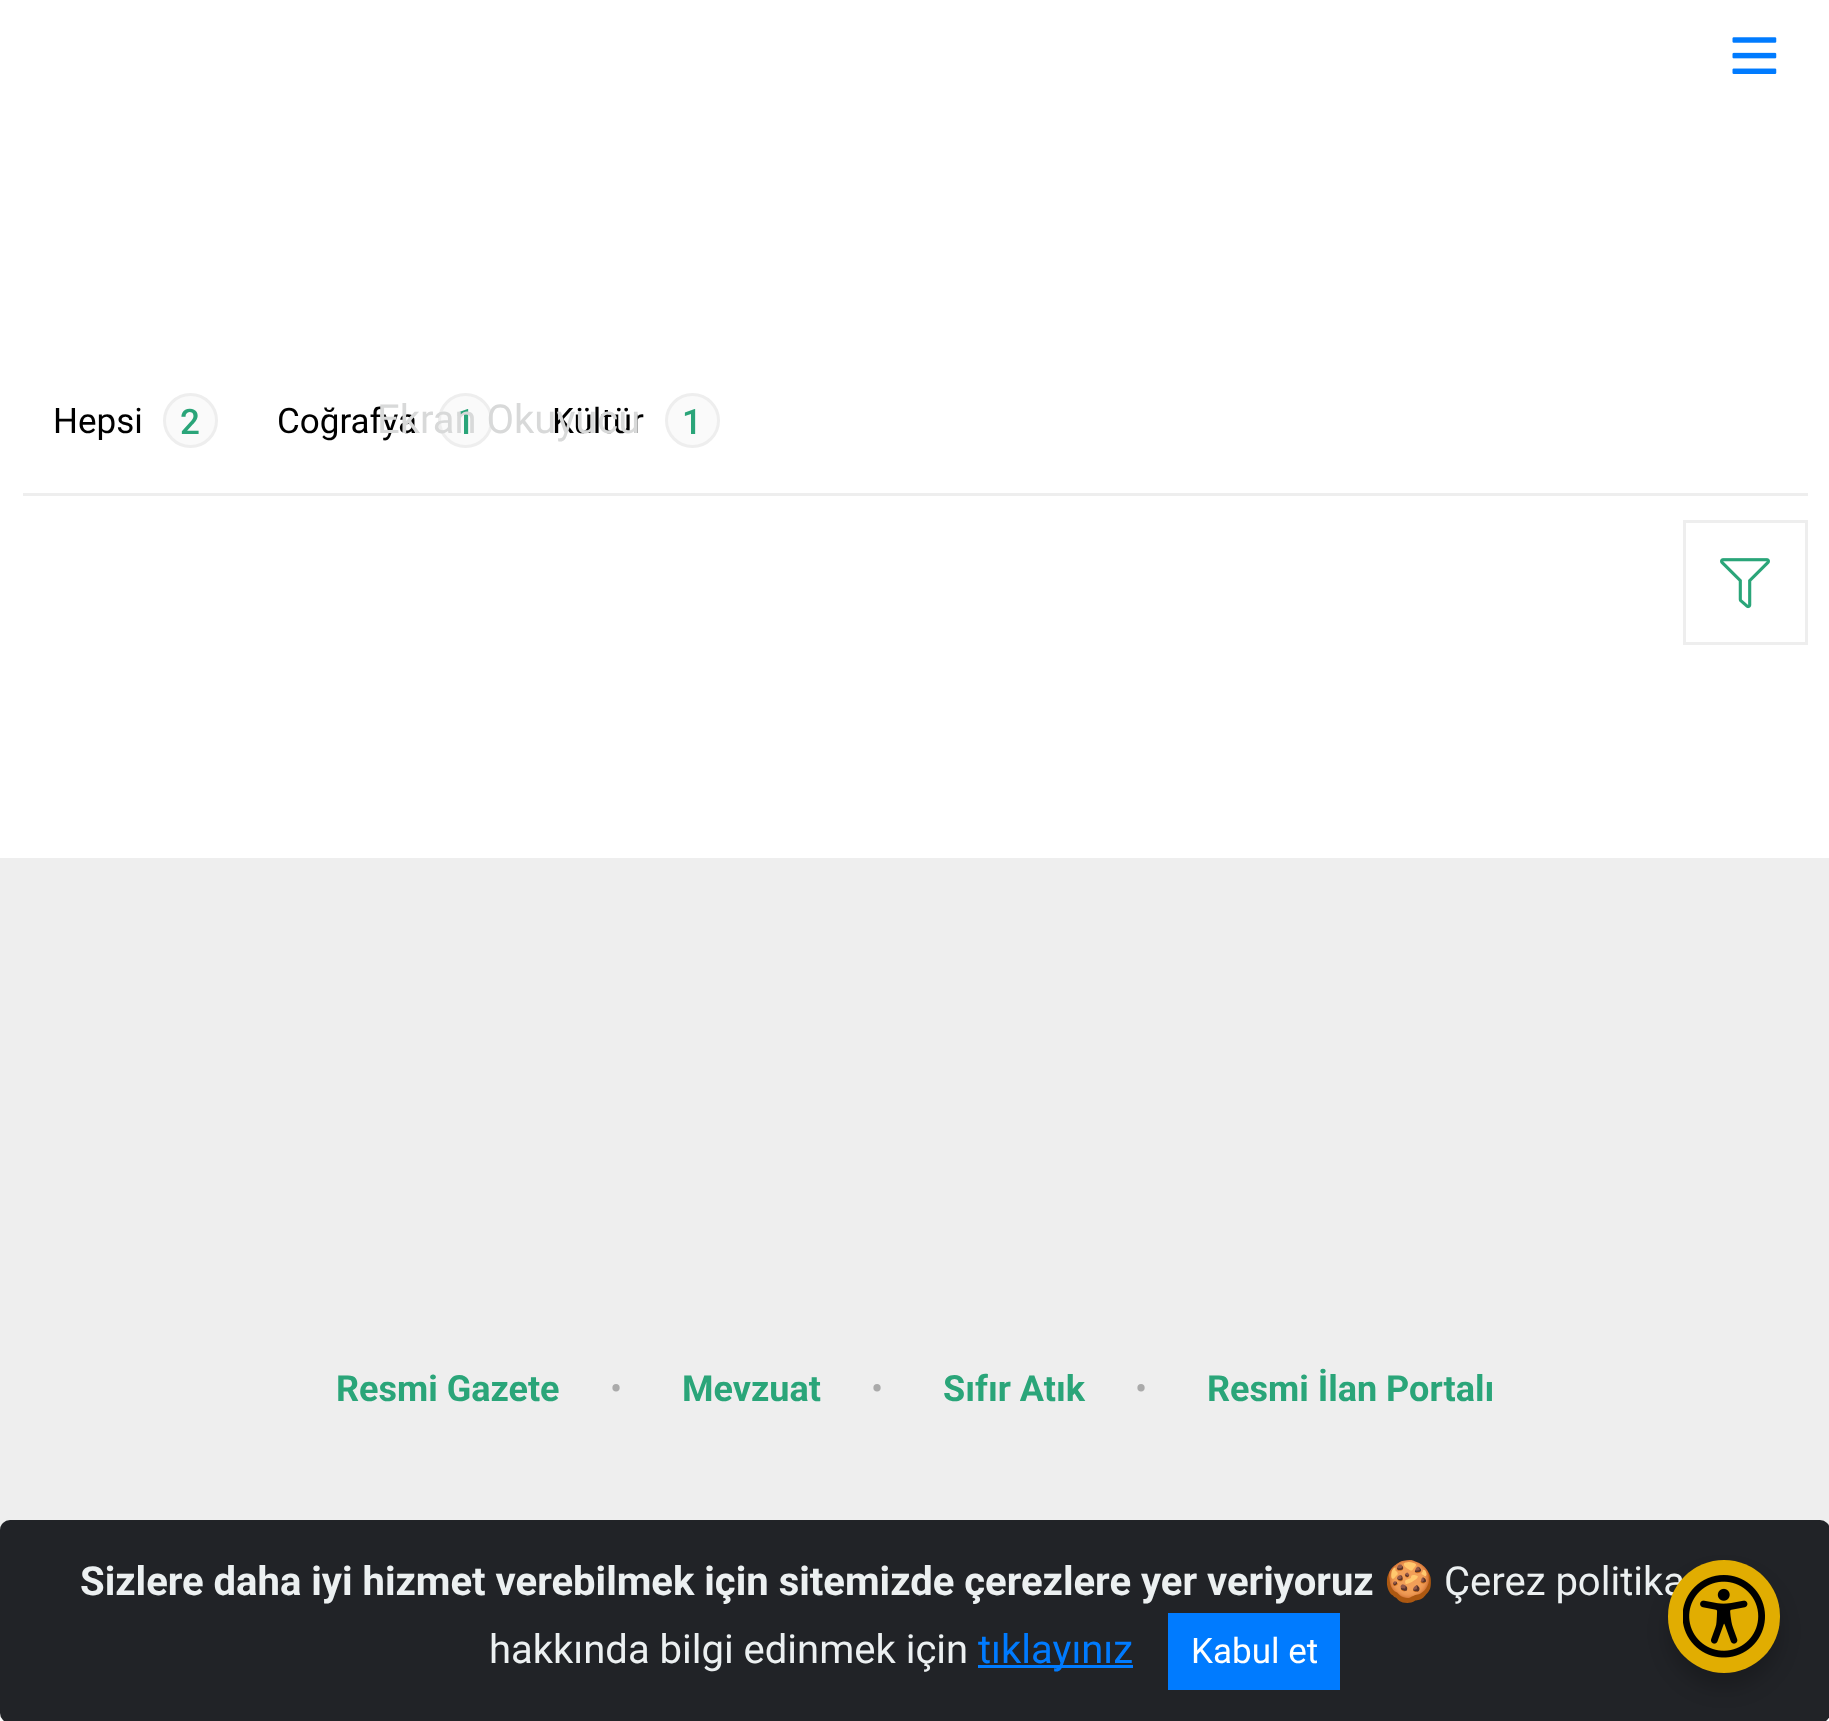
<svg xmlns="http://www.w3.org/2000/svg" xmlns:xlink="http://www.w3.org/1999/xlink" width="1829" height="1721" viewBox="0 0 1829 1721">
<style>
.cls-1{font:35px Roboto;fill:#000000}
.cls-2{font:500 35px Roboto;fill:#2aa579}
.cls-3{font:40px Roboto;fill:#d8d9d9}
.cls-4{font:bold 36px Roboto;fill:#2aa579}
.cls-5{font:36px Roboto;fill:#aaaaaa}
.cls-6{font:bold 40px Roboto;fill:#ecf0f1}
.cls-7{font:40px Noto Color Emoji;fill:#ecf0f1}
.cls-8{font:40px Roboto;fill:#ecf0f1}
.cls-9{font:40px Roboto;fill:#007bff}
.cls-10{font:35px Roboto;fill:#ffffff}
</style>
<rect width="100%" height="100%" fill="#ffffff"/>
<rect fill="#eeeeee" x="0" y="858" width="1829" height="672"/>
<rect fill="#212327" x="0" y="1520" width="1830" height="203" rx="10"/>
<rect fill="#000000" fill-opacity="0.2" filter="blur(10px)" x="1668" y="1575" width="112" height="113" rx="56"/>
<image xlink:href="image1.png" x="1732" y="37" width="45" height="37"/>
<rect fill="#eeeeee" x="23" y="493" width="1785" height="3"/>
<circle fill="#fafafa" stroke="#eeeeee" stroke-width="3" cx="190.5" cy="420.5" r="26"/>
<circle fill="#fafafa" stroke="#eeeeee" stroke-width="3" cx="465.5" cy="420.5" r="26"/>
<circle fill="#fafafa" stroke="#eeeeee" stroke-width="3" cx="692.5" cy="420.5" r="26"/>
<rect fill="none" stroke="#eeeeee" stroke-width="3" x="1684.5" y="521.5" width="122" height="122"/>
<image xlink:href="image2.png" x="1720" y="558" width="50" height="51"/>
<rect fill="#007bff" x="978" y="1665" width="155" height="3"/>
<rect fill="#007bff" x="1168" y="1613" width="172" height="77"/>
<text class="cls-1" x="53" y="433">Hepsi</text>
<text class="cls-2" x="180" y="434">2</text>
<text class="cls-1" x="277" y="433">Coğrafya</text>
<text class="cls-2" x="455" y="434">1</text>
<text class="cls-1" x="552" y="433">Kültür</text>
<text class="cls-3" x="377" y="433">Ekran Okuyucu</text>
<text class="cls-2" x="682" y="434">1</text>
<text class="cls-4" x="336" y="1401">Resmi Gazete</text>
<text class="cls-5" x="610" y="1401">•</text>
<text class="cls-4" x="682" y="1401">Mevzuat</text>
<text class="cls-5" x="871" y="1401">•</text>
<text class="cls-4" x="943" y="1401">Sıfır Atık</text>
<text class="cls-5" x="1135" y="1401">•</text>
<text class="cls-4" x="1207" y="1401">Resmi İlan Portalı</text>
<text class="cls-6" x="80" y="1595">Sizlere daha iyi hizmet verebilmek için sitemizde çerezlere yer veriyoruz</text>
<text class="cls-7" x="1384" y="1595">🍪</text>
<text class="cls-8" x="1444" y="1595">Çerez politika</text>
<rect fill="#e1ad01" x="1668" y="1560" width="112" height="113" rx="56"/>
<image xlink:href="image0.png" x="1683" y="1575" width="82" height="83"/>
<text class="cls-8" x="489" y="1663">hakkında bilgi edinmek için</text>
<text class="cls-9" x="978" y="1663">tıklayınız</text>
<text class="cls-10" x="1191" y="1663">Kabul et</text>
</svg>
